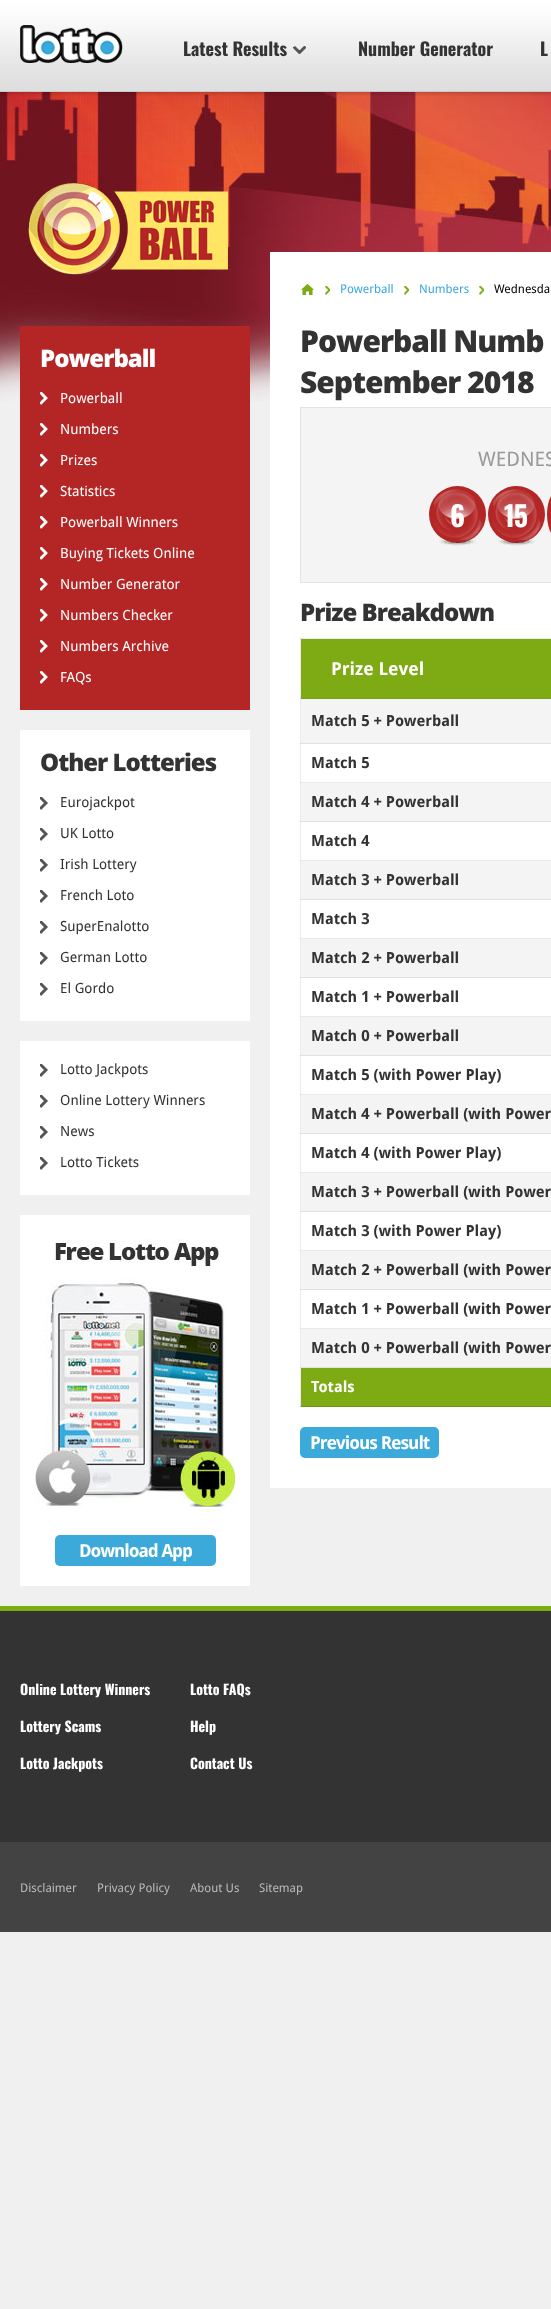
<svg xmlns="http://www.w3.org/2000/svg" xmlns:xlink="http://www.w3.org/1999/xlink" width="551" height="2309" viewBox="0 0 551 2309">
<style>
.cls-1{font:bold 18px Oswald;fill:#333333}
.cls-2{font:800 24px Open Sans;letter-spacing:-1px;fill:#ffffff}
.cls-3{font:14px Droid Sans;fill:#ffffff}
.cls-4{font:800 24px Open Sans;letter-spacing:-1px;fill:#333333}
.cls-5{font:14px Droid Sans;fill:#333333}
.cls-6{font:bold 18px Droid Sans;letter-spacing:-1px;fill:#ffffff}
.cls-7{font:12px Droid Sans;fill:#3ba9da}
.cls-8{font:12px Droid Sans;fill:#000000}
.cls-9{font:800 30px Open Sans;letter-spacing:-1px;fill:#333333}
.cls-10{font:20px Droid Sans;fill:#999999}
.cls-11{font:bold 28px Oswald;letter-spacing:-1px;fill:#ffffff}
.cls-12{font:bold 18px Droid Sans;fill:#ffffff}
.cls-13{font:bold 15.25px Droid Sans;fill:#333333}
.cls-14{font:bold 15.25px Droid Sans;fill:#ffffff}
.cls-15{font:bold 14px Oswald;fill:#ffffff}
.cls-16{font:12px Droid Sans;fill:#b9b9b9}
</style>
<rect width="100%" height="100%" fill="#f0f0f0"/>
<image xlink:href="image0.png" x="0" y="92" width="551" height="309"/>
<image xlink:href="image1.png" x="0" y="0" width="551" height="96"/>
<image xlink:href="image2.png" x="20" y="25" width="103" height="38"/>
<image xlink:href="image3.png" x="293" y="46" width="13" height="8"/>
<image xlink:href="image4.png" x="28" y="183" width="200" height="93"/>
<rect fill="#b42626" x="20" y="326" width="230" height="384"/>
<image xlink:href="image5.png" x="40" y="392" width="8" height="13"/>
<image xlink:href="image5.png" x="40" y="423" width="8" height="13"/>
<image xlink:href="image5.png" x="40" y="454" width="8" height="13"/>
<image xlink:href="image5.png" x="40" y="485" width="8" height="13"/>
<image xlink:href="image5.png" x="40" y="516" width="8" height="13"/>
<image xlink:href="image5.png" x="40" y="547" width="8" height="13"/>
<image xlink:href="image5.png" x="40" y="578" width="8" height="13"/>
<image xlink:href="image5.png" x="40" y="609" width="8" height="13"/>
<image xlink:href="image5.png" x="40" y="640" width="8" height="13"/>
<image xlink:href="image5.png" x="40" y="671" width="8" height="13"/>
<rect fill="#ffffff" x="20" y="730" width="230" height="291"/>
<image xlink:href="image6.png" x="40" y="797" width="8" height="13"/>
<image xlink:href="image6.png" x="40" y="828" width="8" height="13"/>
<image xlink:href="image6.png" x="40" y="859" width="8" height="13"/>
<image xlink:href="image6.png" x="40" y="890" width="8" height="13"/>
<image xlink:href="image6.png" x="40" y="921" width="8" height="13"/>
<image xlink:href="image6.png" x="40" y="952" width="8" height="13"/>
<image xlink:href="image6.png" x="40" y="983" width="8" height="13"/>
<rect fill="#ffffff" x="20" y="1041" width="230" height="154"/>
<image xlink:href="image6.png" x="40" y="1064" width="8" height="13"/>
<image xlink:href="image6.png" x="40" y="1095" width="8" height="13"/>
<image xlink:href="image6.png" x="40" y="1126" width="8" height="13"/>
<image xlink:href="image6.png" x="40" y="1157" width="8" height="13"/>
<rect fill="#ffffff" x="20" y="1215" width="230" height="371"/>
<image xlink:href="image7.png" x="35" y="1239" width="201" height="272"/>
<rect fill="#3ba9da" x="55" y="1535" width="161" height="31" rx="5"/>
<rect fill="#ffffff" x="270" y="252" width="281" height="1236"/>
<rect fill="#ebebeb" x="300" y="782" width="251" height="1"/>
<rect fill="#ebebeb" x="300" y="860" width="251" height="1"/>
<rect fill="#ebebeb" x="300" y="938" width="251" height="1"/>
<rect fill="#ebebeb" x="300" y="1016" width="251" height="1"/>
<rect fill="#ebebeb" x="300" y="1094" width="251" height="1"/>
<rect fill="#ebebeb" x="300" y="1172" width="251" height="1"/>
<rect fill="#ebebeb" x="300" y="1250" width="251" height="1"/>
<rect fill="#ebebeb" x="300" y="1328" width="251" height="1"/>
<rect fill="#ebebeb" x="300" y="638" width="1" height="769"/>
<rect fill="#d9d9d9" x="300" y="698" width="1" height="1"/>
<rect fill="#d9d9d9" x="300" y="743" width="1" height="1"/>
<rect fill="#d9d9d9" x="300" y="782" width="1" height="1"/>
<rect fill="#d9d9d9" x="300" y="821" width="1" height="1"/>
<rect fill="#d9d9d9" x="300" y="860" width="1" height="1"/>
<rect fill="#d9d9d9" x="300" y="899" width="1" height="1"/>
<rect fill="#d9d9d9" x="300" y="938" width="1" height="1"/>
<rect fill="#d9d9d9" x="300" y="977" width="1" height="1"/>
<rect fill="#d9d9d9" x="300" y="1016" width="1" height="1"/>
<rect fill="#d9d9d9" x="300" y="1055" width="1" height="1"/>
<rect fill="#d9d9d9" x="300" y="1094" width="1" height="1"/>
<rect fill="#d9d9d9" x="300" y="1133" width="1" height="1"/>
<rect fill="#d9d9d9" x="300" y="1172" width="1" height="1"/>
<rect fill="#d9d9d9" x="300" y="1211" width="1" height="1"/>
<rect fill="#d9d9d9" x="300" y="1250" width="1" height="1"/>
<rect fill="#d9d9d9" x="300" y="1289" width="1" height="1"/>
<rect fill="#d9d9d9" x="300" y="1328" width="1" height="1"/>
<rect fill="#d9d9d9" x="300" y="1367" width="1" height="1"/>
<rect fill="#c8c8c8" x="300" y="1406" width="1" height="1"/>
<image xlink:href="image8.png" x="301" y="284" width="13" height="11"/>
<image xlink:href="image9.png" x="325" y="286" width="6" height="9"/>
<image xlink:href="image10.png" x="404" y="286" width="5" height="9"/>
<image xlink:href="image9.png" x="479" y="286" width="6" height="9"/>
<rect fill="#f4f4f4" stroke="#e3e3e3" x="300.5" y="407.5" width="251" height="175"/>
<circle fill="#b42626" cx="457.5" cy="514.5" r="28.5"/>
<image xlink:href="image12.png" x="439" y="539" width="37" height="7"/>
<image xlink:href="image11.png" x="434" y="489" width="49" height="51"/>
<circle fill="#b42626" cx="516.5" cy="514.5" r="28.5"/>
<image xlink:href="image12.png" x="498" y="539" width="37" height="7"/>
<image xlink:href="image11.png" x="493" y="489" width="49" height="51"/>
<rect fill="#b42626" x="547" y="486" width="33" height="57" rx="28.5"/>
<rect fill="#ebebeb" x="300" y="638" width="251" height="1"/>
<rect fill="#d9d9d9" x="300" y="638" width="1" height="1"/>
<rect fill="#7eab14" x="301" y="639" width="250" height="59"/>
<rect fill="#779f17" x="301" y="698" width="250" height="1"/>
<rect fill="#f4f4f4" x="301" y="699" width="250" height="44"/>
<rect fill="#e1e1e1" x="301" y="743" width="250" height="1"/>
<rect fill="#f4f4f4" x="301" y="783" width="250" height="38"/>
<rect fill="#e1e1e1" x="301" y="821" width="250" height="1"/>
<rect fill="#f4f4f4" x="301" y="861" width="250" height="38"/>
<rect fill="#e1e1e1" x="301" y="899" width="250" height="1"/>
<rect fill="#f4f4f4" x="301" y="939" width="250" height="38"/>
<rect fill="#e1e1e1" x="301" y="977" width="250" height="1"/>
<rect fill="#f4f4f4" x="301" y="1017" width="250" height="38"/>
<rect fill="#e1e1e1" x="301" y="1055" width="250" height="1"/>
<rect fill="#f4f4f4" x="301" y="1095" width="250" height="38"/>
<rect fill="#e1e1e1" x="301" y="1133" width="250" height="1"/>
<rect fill="#f4f4f4" x="301" y="1173" width="250" height="38"/>
<rect fill="#e1e1e1" x="301" y="1211" width="250" height="1"/>
<rect fill="#f4f4f4" x="301" y="1251" width="250" height="38"/>
<rect fill="#e1e1e1" x="301" y="1289" width="250" height="1"/>
<rect fill="#f4f4f4" x="301" y="1329" width="250" height="38"/>
<rect fill="#e1e1e1" x="301" y="1367" width="250" height="1"/>
<rect fill="#7eab14" x="301" y="1368" width="250" height="38"/>
<rect fill="#70941a" x="301" y="1406" width="250" height="1"/>
<rect fill="#3ba9da" x="300" y="1427" width="139" height="31" rx="5"/>
<rect fill="#333333" x="0" y="1611" width="551" height="231"/>
<rect fill="#7eab14" x="0" y="1606" width="551" height="5"/>
<rect fill="#434343" x="0" y="1842" width="551" height="90"/>
<text class="cls-1" x="183" y="56">Latest Results</text>
<text class="cls-1" x="358" y="56">Number Generator</text>
<text class="cls-1" x="540" y="56">L</text>
<text class="cls-2" x="40" y="367">Powerball</text>
<text class="cls-3" x="60" y="403">Powerball</text>
<text class="cls-3" x="60" y="434">Numbers</text>
<text class="cls-3" x="60" y="465">Prizes</text>
<text class="cls-3" x="60" y="496">Statistics</text>
<text class="cls-3" x="60" y="527">Powerball Winners</text>
<text class="cls-3" x="60" y="558">Buying Tickets Online</text>
<text class="cls-3" x="60" y="589">Number Generator</text>
<text class="cls-3" x="60" y="620">Numbers Checker</text>
<text class="cls-3" x="60" y="651">Numbers Archive</text>
<text class="cls-3" x="60" y="682">FAQs</text>
<text class="cls-4" x="40" y="771">Other Lotteries</text>
<text class="cls-5" x="60" y="807">Eurojackpot</text>
<text class="cls-5" x="60" y="838">UK Lotto</text>
<text class="cls-5" x="60" y="869">Irish Lottery</text>
<text class="cls-5" x="60" y="900">French Loto</text>
<text class="cls-5" x="60" y="931">SuperEnalotto</text>
<text class="cls-5" x="60" y="962">German Lotto</text>
<text class="cls-5" x="60" y="993">El Gordo</text>
<text class="cls-5" x="60" y="1074">Lotto Jackpots</text>
<text class="cls-5" x="60" y="1105">Online Lottery Winners</text>
<text class="cls-5" x="60" y="1136">News</text>
<text class="cls-5" x="60" y="1167">Lotto Tickets</text>
<text class="cls-6" x="79" y="1557">Download App</text>
<text class="cls-7" x="340" y="293">Powerball</text>
<text class="cls-7" x="419" y="293">Numbers</text>
<text class="cls-8" x="494" y="293">Wednesda</text>
<text class="cls-9"><tspan x="300" y="352">Powerball Numb</tspan><tspan x="300" y="393">September 2018</tspan></text>
<text class="cls-10" x="478" y="466">WEDNES</text>
<text class="cls-11" x="450" y="527">6</text>
<text class="cls-11" x="504" y="527">15</text>
<text class="cls-4" x="300" y="621">Prize Breakdown</text>
<text class="cls-12" x="331" y="675">Prize Level</text>
<text class="cls-13" x="311" y="726">Match 5 + Powerball</text>
<text class="cls-13" x="311" y="768">Match 5</text>
<text class="cls-13" x="311" y="807">Match 4 + Powerball</text>
<text class="cls-13" x="311" y="846">Match 4</text>
<text class="cls-13" x="311" y="885">Match 3 + Powerball</text>
<text class="cls-13" x="311" y="924">Match 3</text>
<text class="cls-13" x="311" y="963">Match 2 + Powerball</text>
<text class="cls-13" x="311" y="1002">Match 1 + Powerball</text>
<text class="cls-13" x="311" y="1041">Match 0 + Powerball</text>
<text class="cls-13" x="311" y="1080">Match 5 (with Power Play)</text>
<text class="cls-13" x="311" y="1119">Match 4 + Powerball (with Power</text>
<text class="cls-13" x="311" y="1158">Match 4 (with Power Play)</text>
<text class="cls-13" x="311" y="1197">Match 3 + Powerball (with Power</text>
<text class="cls-13" x="311" y="1236">Match 3 (with Power Play)</text>
<text class="cls-13" x="311" y="1275">Match 2 + Powerball (with Power</text>
<text class="cls-13" x="311" y="1314">Match 1 + Powerball (with Power</text>
<text class="cls-13" x="311" y="1353">Match 0 + Powerball (with Power</text>
<text class="cls-14" x="311" y="1392">Totals</text>
<text class="cls-6" x="310" y="1449">Previous Result</text>
<text class="cls-15" x="20" y="1695">Online Lottery Winners</text>
<text class="cls-15" x="20" y="1732">Lottery Scams</text>
<text class="cls-15" x="20" y="1769">Lotto Jackpots</text>
<text class="cls-15" x="190" y="1695">Lotto FAQs</text>
<text class="cls-15" x="190" y="1732">Help</text>
<text class="cls-15" x="190" y="1769">Contact Us</text>
<text class="cls-16" x="20" y="1892">Disclaimer</text>
<text class="cls-16" x="97" y="1892">Privacy Policy</text>
<text class="cls-16" x="190" y="1892">About Us</text>
<text class="cls-16" x="259" y="1892">Sitemap</text>
</svg>
